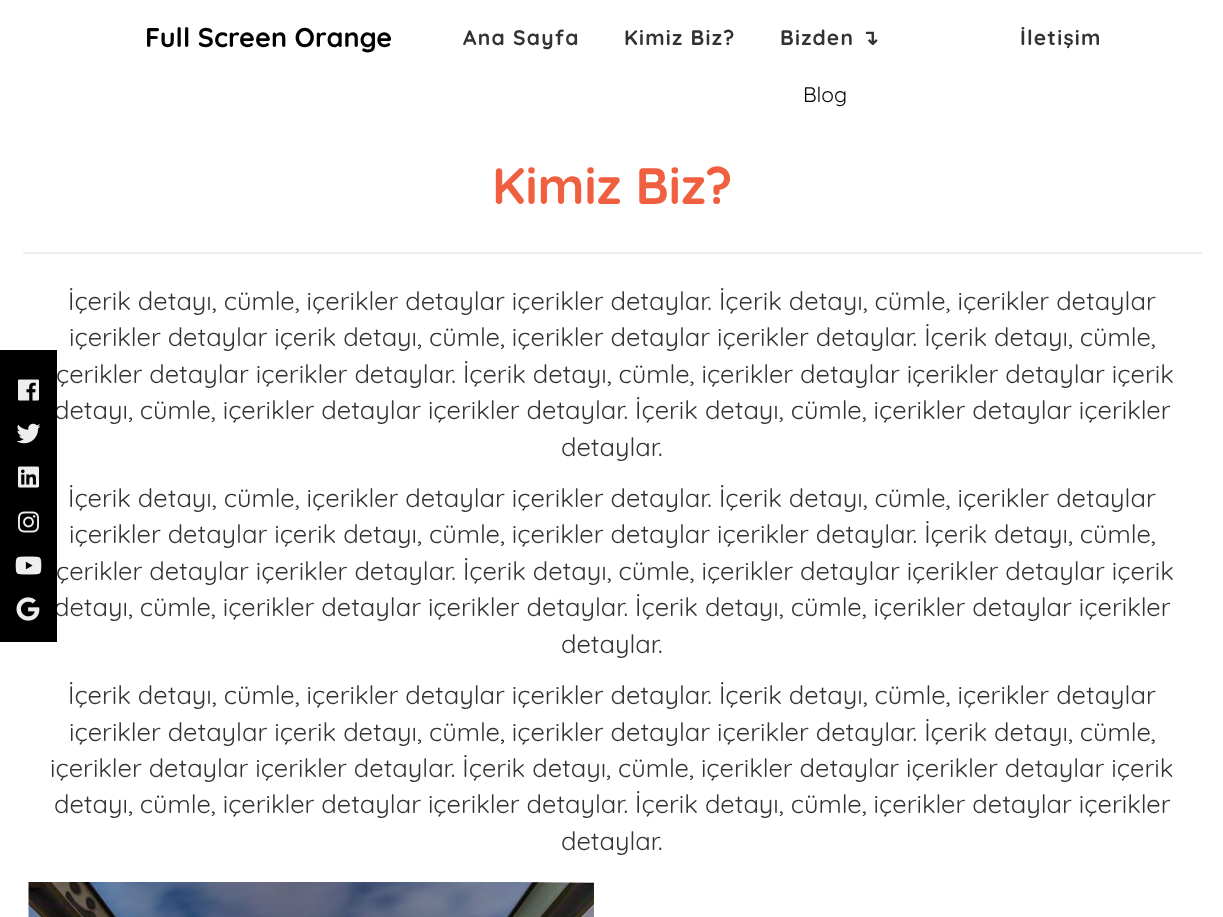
<svg xmlns="http://www.w3.org/2000/svg" xmlns:xlink="http://www.w3.org/1999/xlink" width="1223" height="917" viewBox="0 0 1223 917">
<style>
.cls-1{font:bold 27px Quicksand;fill:#000000}
.cls-2{font:bold 21px Quicksand;letter-spacing:1.25px;fill:#333333}
.cls-3{font:bold 21px DejaVu Sans;letter-spacing:1.25px;fill:#333333}
.cls-4{font:21px Quicksand;fill:#000000}
.cls-5{font:bold 51px Quicksand;fill:#f05f40}
.cls-6{font:25.5px Quicksand;fill:#333333}
</style>
<rect width="100%" height="100%" fill="#ffffff"/>
<rect fill="#eeeeee" x="23" y="252" width="1179" height="2"/>
<image xlink:href="image6.png" x="28" y="882" width="566" height="35"/>
<text class="cls-1" x="145" y="47">Full Screen Orange</text>
<text class="cls-2" x="463" y="45">Ana Sayfa</text>
<text class="cls-2" x="624" y="45">Kimiz Biz?</text>
<text class="cls-2" x="780" y="45">Bizden</text>
<text class="cls-3" x="861" y="45">↴</text>
<text class="cls-4" x="803" y="102">Blog</text>
<text class="cls-2" x="1020" y="45">İletişim</text>
<text class="cls-5" x="492" y="204">Kimiz Biz?</text>
<text class="cls-6" x="68" y="310">İçerik detayı, cümle, içerikler detaylar içerikler detaylar. İçerik detayı, cümle, içerikler detaylar</text>
<text class="cls-6" x="69" y="346">içerikler detaylar içerik detayı, cümle, içerikler detaylar içerikler detaylar. İçerik detayı, cümle,</text>
<text class="cls-6" x="56" y="383">çerikler detaylar içerikler detaylar. İçerik detayı, cümle, içerikler detaylar içerikler detaylar içerik</text>
<text class="cls-6" x="54" y="419">detayı, cümle, içerikler detaylar içerikler detaylar. İçerik detayı, cümle, içerikler detaylar içerikler</text>
<text class="cls-6" x="561" y="456">detaylar.</text>
<text class="cls-6" x="68" y="507">İçerik detayı, cümle, içerikler detaylar içerikler detaylar. İçerik detayı, cümle, içerikler detaylar</text>
<text class="cls-6" x="69" y="543">içerikler detaylar içerik detayı, cümle, içerikler detaylar içerikler detaylar. İçerik detayı, cümle,</text>
<text class="cls-6" x="56" y="580">çerikler detaylar içerikler detaylar. İçerik detayı, cümle, içerikler detaylar içerikler detaylar içerik</text>
<text class="cls-6" x="54" y="616">detayı, cümle, içerikler detaylar içerikler detaylar. İçerik detayı, cümle, içerikler detaylar içerikler</text>
<rect fill="#000000" x="0" y="350" width="57" height="292"/>
<image xlink:href="image5.png" x="16" y="597" width="24" height="24"/>
<image xlink:href="image4.png" x="15" y="556" width="27" height="19"/>
<image xlink:href="image3.png" x="18" y="511" width="21" height="22"/>
<image xlink:href="image2.png" x="18" y="466" width="21" height="22"/>
<image xlink:href="image1.png" x="16" y="423" width="25" height="21"/>
<image xlink:href="image0.png" x="18" y="379" width="21" height="22"/>
<text class="cls-6" x="561" y="653">detaylar.</text>
<text class="cls-6" x="68" y="704">İçerik detayı, cümle, içerikler detaylar içerikler detaylar. İçerik detayı, cümle, içerikler detaylar</text>
<text class="cls-6" x="69" y="741">içerikler detaylar içerik detayı, cümle, içerikler detaylar içerikler detaylar. İçerik detayı, cümle,</text>
<text class="cls-6" x="50" y="777">içerikler detaylar içerikler detaylar. İçerik detayı, cümle, içerikler detaylar içerikler detaylar içerik</text>
<text class="cls-6" x="54" y="813">detayı, cümle, içerikler detaylar içerikler detaylar. İçerik detayı, cümle, içerikler detaylar içerikler</text>
<text class="cls-6" x="561" y="850">detaylar.</text>
</svg>
